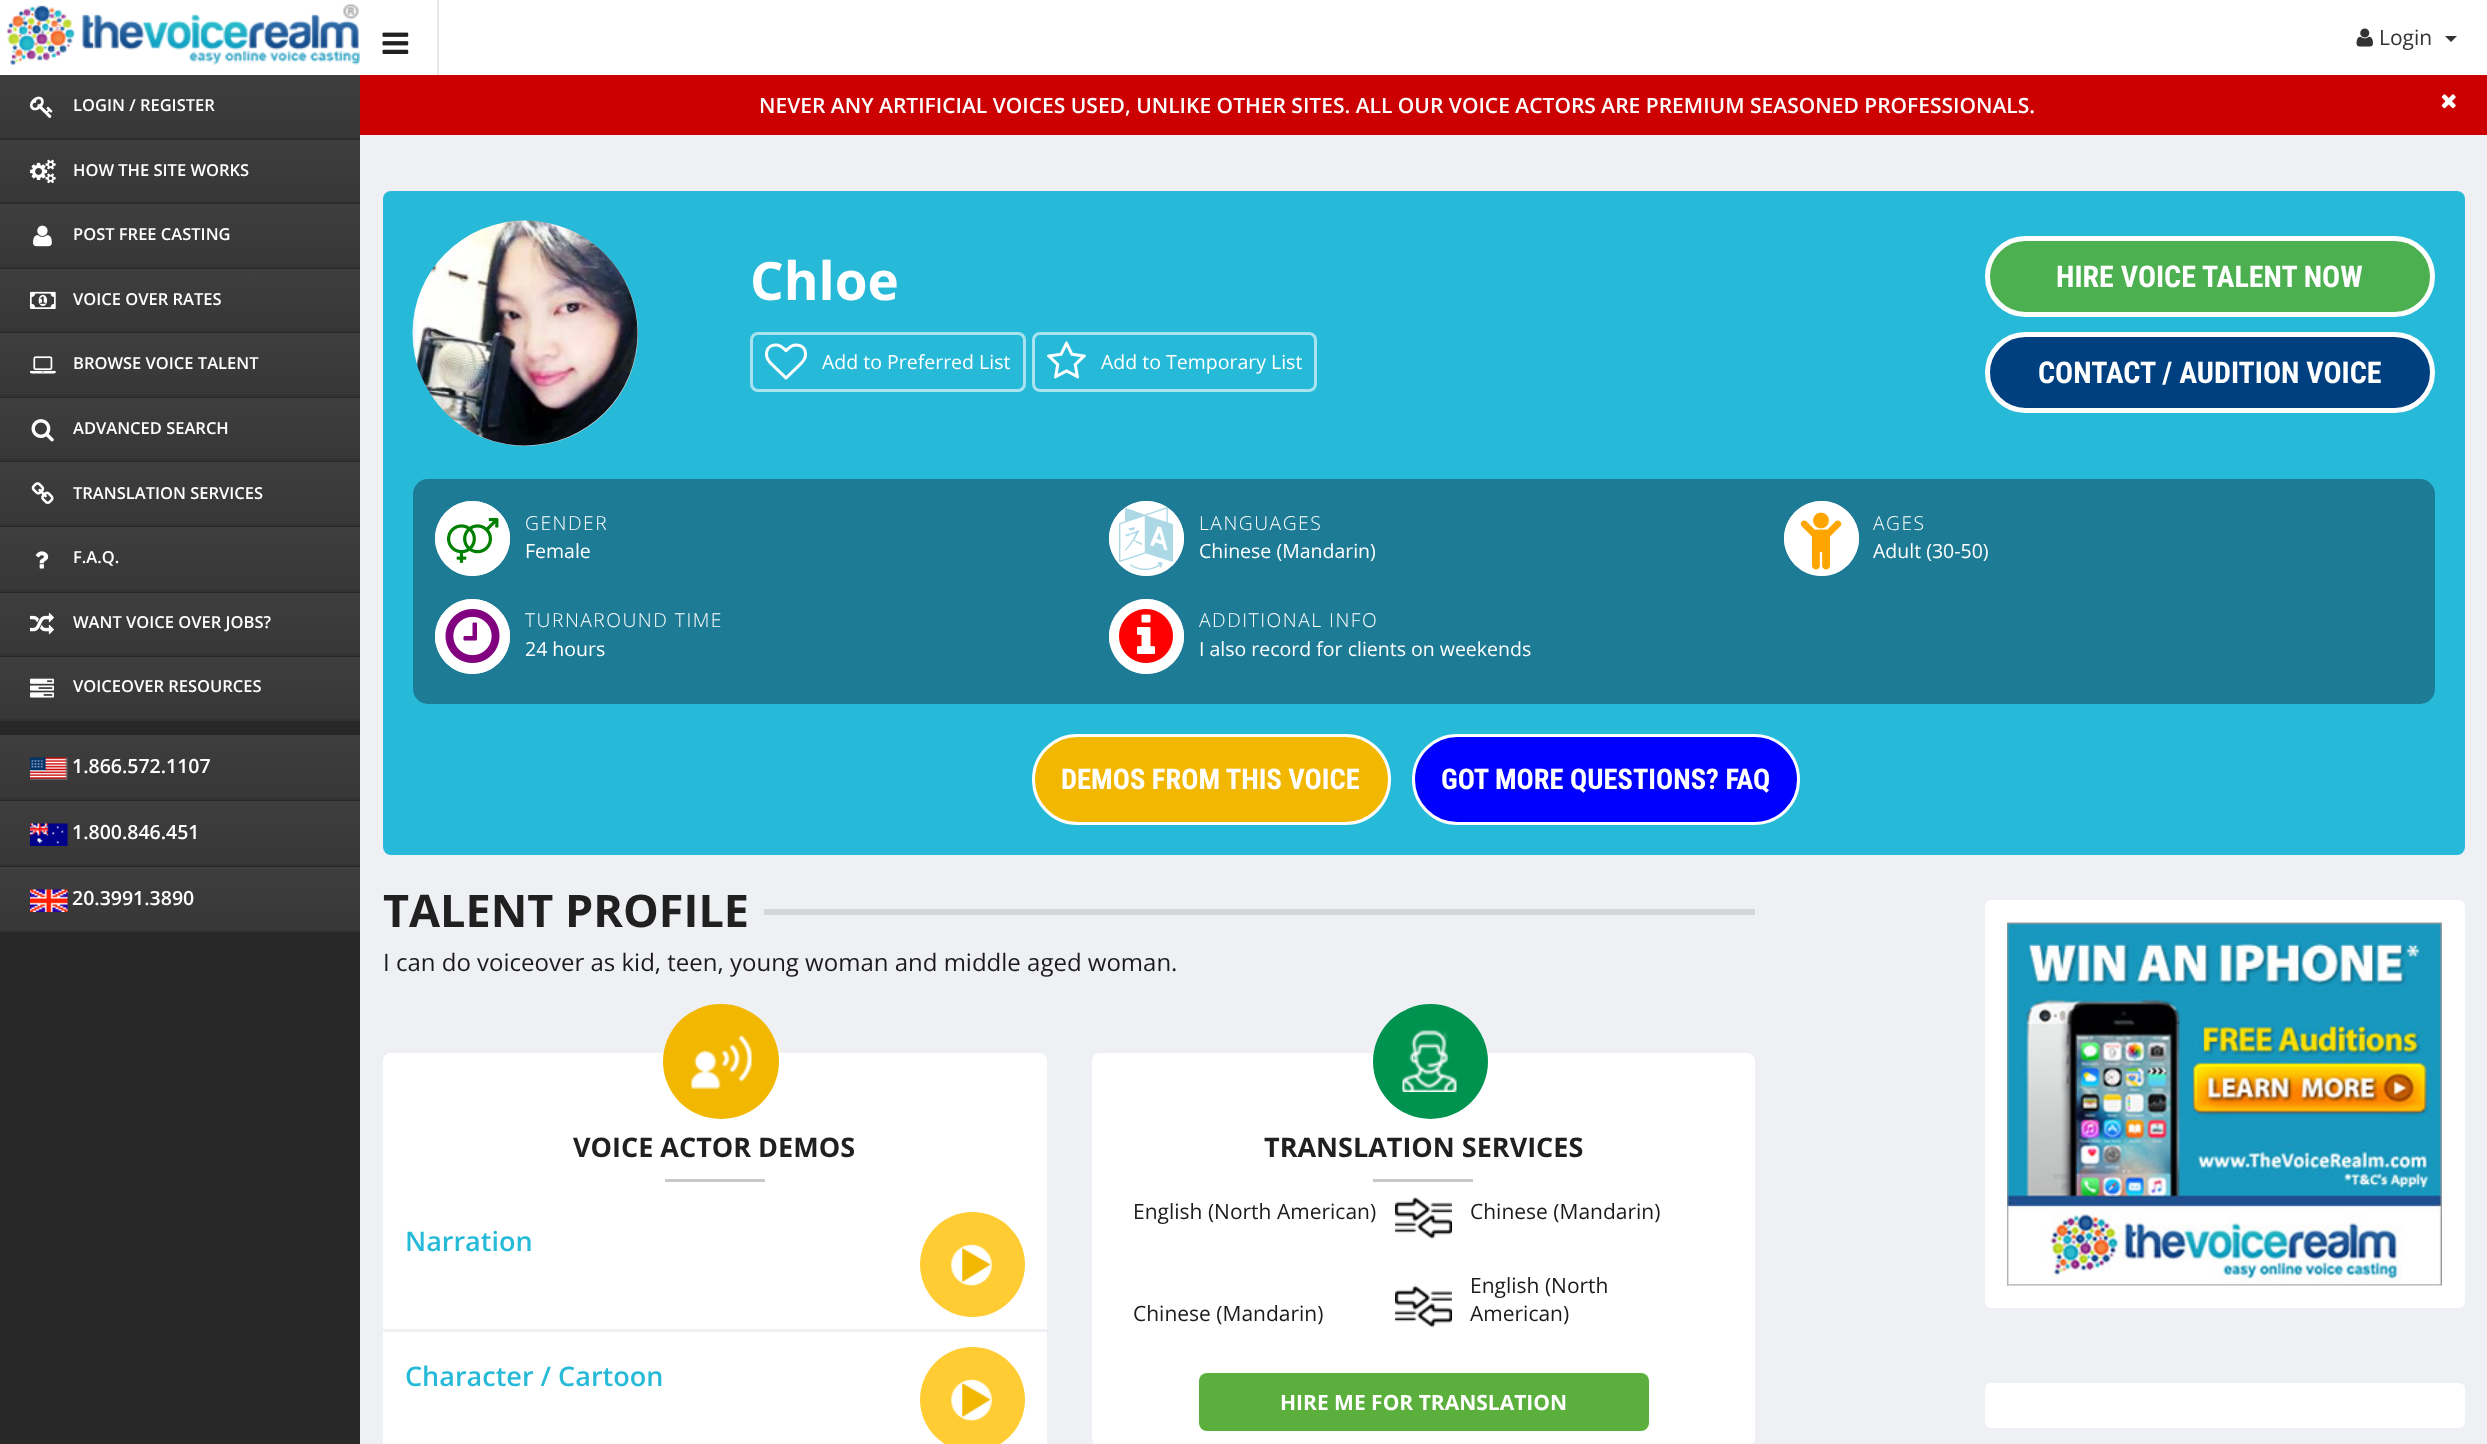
<svg xmlns="http://www.w3.org/2000/svg" xmlns:xlink="http://www.w3.org/1999/xlink" width="2487" height="1444" viewBox="0 0 2487 1444">
<style>
.cls-1{font:600 16.5px Open Sans;fill:#ffffff}
.cls-2{font:600 19.5px Open Sans;fill:#ffffff}
.cls-3{font:21px Open Sans;fill:#333333}
.cls-4{font:600 21px Open Sans;fill:#ffffff}
.cls-5{font:bold 53px Open Sans;fill:#ffffff}
.cls-6{font:19.5px Open Sans;fill:#ffffff}
.cls-7{font:bold 30px Roboto Condensed;fill:#ffffff}
.cls-8{font:300 19.25px Open Sans;letter-spacing:1.5px;fill:#ffffff}
.cls-9{font:bold 28.5px Roboto Condensed;fill:#ffffff}
.cls-10{font:bold 45px Open Sans;fill:#212020}
.cls-11{font:24px Open Sans;fill:#1b1b1b}
.cls-12{font:bold 27px Open Sans;fill:#212020}
.cls-13{font:600 27px Open Sans;fill:#27bad8}
.cls-14{font:21px Open Sans;fill:#1b1b1b}
.cls-15{font:bold 21px Open Sans;fill:#ffffff}
</style>
<defs>
<linearGradient id="g1" gradientUnits="userSpaceOnUse" x1="180" y1="75" x2="180" y2="137"><stop offset="0" stop-color="#b5bdc8"/><stop offset="0" stop-color="#3e3e3e"/><stop offset="1" stop-color="#373737"/></linearGradient>
<linearGradient id="g2" gradientUnits="userSpaceOnUse" x1="180" y1="139" x2="180" y2="201"><stop offset="0" stop-color="#b5bdc8"/><stop offset="0" stop-color="#3e3e3e"/><stop offset="1" stop-color="#373737"/></linearGradient>
<linearGradient id="g3" gradientUnits="userSpaceOnUse" x1="180" y1="204" x2="180" y2="266"><stop offset="0" stop-color="#b5bdc8"/><stop offset="0" stop-color="#3e3e3e"/><stop offset="1" stop-color="#373737"/></linearGradient>
<linearGradient id="g4" gradientUnits="userSpaceOnUse" x1="180" y1="269" x2="180" y2="330"><stop offset="0" stop-color="#b5bdc8"/><stop offset="0" stop-color="#3e3e3e"/><stop offset="1" stop-color="#373737"/></linearGradient>
<linearGradient id="g5" gradientUnits="userSpaceOnUse" x1="180" y1="333" x2="180" y2="395"><stop offset="0" stop-color="#b5bdc8"/><stop offset="0" stop-color="#3e3e3e"/><stop offset="1" stop-color="#373737"/></linearGradient>
<linearGradient id="g6" gradientUnits="userSpaceOnUse" x1="180" y1="398" x2="180" y2="459"><stop offset="0" stop-color="#b5bdc8"/><stop offset="0" stop-color="#3e3e3e"/><stop offset="1" stop-color="#373737"/></linearGradient>
<linearGradient id="g7" gradientUnits="userSpaceOnUse" x1="180" y1="462" x2="180" y2="524"><stop offset="0" stop-color="#b5bdc8"/><stop offset="0" stop-color="#3e3e3e"/><stop offset="1" stop-color="#373737"/></linearGradient>
<linearGradient id="g8" gradientUnits="userSpaceOnUse" x1="180" y1="527" x2="180" y2="590"><stop offset="0" stop-color="#b5bdc8"/><stop offset="0" stop-color="#3e3e3e"/><stop offset="1" stop-color="#373737"/></linearGradient>
<linearGradient id="g9" gradientUnits="userSpaceOnUse" x1="180" y1="593" x2="180" y2="654"><stop offset="0" stop-color="#b5bdc8"/><stop offset="0" stop-color="#3e3e3e"/><stop offset="1" stop-color="#373737"/></linearGradient>
<linearGradient id="g10" gradientUnits="userSpaceOnUse" x1="180" y1="657" x2="180" y2="719"><stop offset="0" stop-color="#b5bdc8"/><stop offset="0" stop-color="#3e3e3e"/><stop offset="1" stop-color="#373737"/></linearGradient>
<linearGradient id="g11" gradientUnits="userSpaceOnUse" x1="180" y1="735" x2="180" y2="798"><stop offset="0" stop-color="#b5bdc8"/><stop offset="0" stop-color="#3e3e3e"/><stop offset="1" stop-color="#373737"/></linearGradient>
<linearGradient id="g12" gradientUnits="userSpaceOnUse" x1="180" y1="801" x2="180" y2="864"><stop offset="0" stop-color="#b5bdc8"/><stop offset="0" stop-color="#3e3e3e"/><stop offset="1" stop-color="#373737"/></linearGradient>
<linearGradient id="g13" gradientUnits="userSpaceOnUse" x1="180" y1="867" x2="180" y2="930"><stop offset="0" stop-color="#b5bdc8"/><stop offset="0" stop-color="#3e3e3e"/><stop offset="1" stop-color="#373737"/></linearGradient>
</defs>
<rect width="100%" height="100%" fill="#eff0f4"/>
<rect fill="#282828" x="0" y="139" width="360" height="1305"/>
<rect fill="#ffffff" x="0" y="0" width="2487" height="75"/>
<image xlink:href="image0.png" x="7" y="4" width="353" height="61"/>
<rect fill="url(#g1)" x="0" y="75" width="360" height="62"/>
<rect fill="#323232" x="0" y="137" width="360" height="2"/>
<image xlink:href="image1.png" x="30" y="96" width="23" height="22"/>
<rect fill="url(#g2)" x="0" y="140" width="360" height="61"/>
<rect fill="#323232" x="0" y="201" width="360" height="2"/>
<image xlink:href="image2.png" x="30" y="159" width="26" height="25"/>
<rect fill="url(#g3)" x="0" y="204" width="360" height="62"/>
<rect fill="#323232" x="0" y="266" width="360" height="2"/>
<image xlink:href="image3.png" x="33" y="225" width="19" height="22"/>
<rect fill="url(#g4)" x="0" y="269" width="360" height="61"/>
<rect fill="#323232" x="0" y="330" width="360" height="2"/>
<image xlink:href="image4.png" x="30" y="291" width="26" height="18"/>
<rect fill="url(#g5)" x="0" y="333" width="360" height="62"/>
<rect fill="#323232" x="0" y="395" width="360" height="2"/>
<image xlink:href="image5.png" x="30" y="356" width="26" height="18"/>
<rect fill="url(#g6)" x="0" y="398" width="360" height="61"/>
<rect fill="#323232" x="0" y="459" width="360" height="2"/>
<image xlink:href="image6.png" x="31" y="419" width="23" height="23"/>
<rect fill="url(#g7)" x="0" y="462" width="360" height="62"/>
<rect fill="#323232" x="0" y="524" width="360" height="2"/>
<image xlink:href="image7.png" x="31" y="482" width="23" height="22"/>
<rect fill="url(#g8)" x="0" y="527" width="360" height="63"/>
<rect fill="#323232" x="0" y="590" width="360" height="2"/>
<image xlink:href="image8.png" x="35" y="551" width="14" height="18"/>
<rect fill="url(#g9)" x="0" y="593" width="360" height="61"/>
<rect fill="#323232" x="0" y="654" width="360" height="2"/>
<image xlink:href="image9.png" x="30" y="612" width="24" height="23"/>
<rect fill="url(#g10)" x="0" y="657" width="360" height="62"/>
<rect fill="#323232" x="0" y="719" width="360" height="2"/>
<image xlink:href="image10.png" x="30" y="678" width="24" height="20"/>
<rect fill="url(#g11)" x="0" y="735" width="360" height="63"/>
<rect fill="#323232" x="0" y="798" width="360" height="2"/>
<image xlink:href="image11.png" x="30" y="757" width="38" height="23"/>
<rect fill="url(#g12)" x="0" y="801" width="360" height="63"/>
<rect fill="#323232" x="0" y="864" width="360" height="2"/>
<image xlink:href="image12.png" x="30" y="823" width="38" height="23"/>
<rect fill="url(#g13)" x="0" y="867" width="360" height="63"/>
<rect fill="#323232" x="0" y="930" width="360" height="2"/>
<image xlink:href="image13.png" x="30" y="889" width="38" height="23"/>
<rect fill="#e7e7e7" x="437" y="0" width="2" height="75"/>
<image xlink:href="image14.png" x="382" y="32" width="27" height="22"/>
<image xlink:href="image15.png" x="2356" y="28" width="17" height="19"/>
<path fill="#333333" d="M2445 36H2457L2451 42Z"/>
<rect fill="#cc0000" x="360" y="75" width="2127" height="60"/>
<image xlink:href="image16.png" x="2441" y="94" width="15" height="15"/>
<rect fill="#27bad8" x="383" y="191" width="2082" height="664" rx="8"/>
<circle fill="#d3d3d3" cx="525.5" cy="333.5" r="112.5"/>
<image xlink:href="image17.png" x="412" y="220" width="226" height="226"/>
<rect fill="none" stroke="#a9e3ef" stroke-width="3" x="751.5" y="333.5" width="273" height="57" rx="6.5"/>
<image xlink:href="image18.png" x="765" y="343" width="42" height="37"/>
<rect fill="none" stroke="#a9e3ef" stroke-width="3" x="1033.5" y="333.5" width="282" height="57" rx="6.5"/>
<image xlink:href="image19.png" x="1047" y="341" width="39" height="38"/>
<rect fill="#4caf50" stroke="#ffffff" stroke-width="5" x="1987.5" y="238.5" width="445" height="76" rx="38"/>
<rect fill="#004080" stroke="#ffffff" stroke-width="5" x="1987.5" y="334.5" width="445" height="76" rx="38"/>
<rect fill="#1e7b96" x="413" y="479" width="2022" height="225" rx="15"/>
<circle fill="#ffffff" cx="472.5" cy="538.5" r="37.5"/>
<path fill="#ffffff" d="M472 501C493 501 510 518 510 538C510 559 493 576 472 576C452 576 435 559 435 538C435 518 452 501 472 501Z"/>
<image xlink:href="image20.png" x="447" y="517" width="52" height="46"/>
<circle fill="#ffffff" cx="1146.5" cy="538.5" r="37.5"/>
<path fill="#ffffff" d="M1146 501C1167 501 1184 518 1184 538C1184 559 1167 576 1146 576C1126 576 1109 559 1109 538C1109 518 1126 501 1146 501Z"/>
<image xlink:href="image21.png" x="1119" y="507" width="54" height="63"/>
<circle fill="#ffffff" cx="1821.5" cy="538.5" r="37.5"/>
<path fill="#ffffff" d="M1822 501C1842 501 1859 518 1859 538C1859 559 1842 576 1822 576C1801 576 1784 559 1784 538C1784 518 1801 501 1822 501Z"/>
<image xlink:href="image22.png" x="1800" y="512" width="42" height="58"/>
<circle fill="#ffffff" cx="472.5" cy="636.5" r="37.5"/>
<path fill="#ffffff" d="M472 599C493 599 510 616 510 636C510 657 493 674 472 674C452 674 435 657 435 636C435 616 452 599 472 599Z"/>
<image xlink:href="image23.png" x="445" y="609" width="55" height="54"/>
<circle fill="#ffffff" cx="1146.5" cy="636.5" r="37.5"/>
<path fill="#ffffff" d="M1146 599C1167 599 1184 616 1184 636C1184 657 1167 674 1146 674C1126 674 1109 657 1109 636C1109 616 1126 599 1146 599Z"/>
<image xlink:href="image24.png" x="1119" y="609" width="54" height="54"/>
<rect fill="#f2b701" stroke="#ffffff" stroke-width="3" x="1033.5" y="735.5" width="356" height="88" rx="44"/>
<rect fill="#0000ff" stroke="#ffffff" stroke-width="3" x="1413.5" y="735.5" width="385" height="88" rx="44"/>
<rect fill="#d5d6da" x="764" y="909" width="991" height="6"/>
<rect fill="#ffffff" x="383" y="1053" width="664" height="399" rx="8"/>
<rect fill="#f2b701" x="663" y="1004" width="116" height="115" rx="57.5"/>
<image xlink:href="image25.png" x="691" y="1035" width="61" height="54"/>
<rect fill="#c8c8c8" x="665" y="1179" width="100" height="3"/>
<rect fill="#eff0f4" x="383" y="1329" width="664" height="3"/>
<circle fill="#ffcd33" cx="972.5" cy="1264.5" r="52.5"/>
<image xlink:href="image26.png" x="951" y="1244" width="41" height="42"/>
<circle fill="#ffcd33" cx="972.5" cy="1399.5" r="52.5"/>
<image xlink:href="image26.png" x="951" y="1379" width="41" height="42"/>
<rect fill="#ffffff" x="1092" y="1053" width="663" height="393" rx="8"/>
<circle fill="#009350" cx="1430.5" cy="1061.5" r="57.5"/>
<image xlink:href="image27.png" x="1402" y="1030" width="55" height="62"/>
<rect fill="#c8c8c8" x="1373" y="1179" width="100" height="3"/>
<image xlink:href="image28.png" x="1395" y="1197" width="57" height="42"/>
<image xlink:href="image29.png" x="1395" y="1285" width="57" height="43"/>
<rect fill="#5baf3d" x="1199" y="1373" width="450" height="58" rx="8"/>
<rect fill="#ffffff" x="1985" y="900" width="480" height="408" rx="6"/>
<image xlink:href="image30.png" x="2007" y="922" width="435" height="364"/>
<rect fill="#ffffff" x="1985" y="1383" width="480" height="45" rx="6"/>
<text class="cls-1" x="73" y="111">LOGIN / REGISTER</text>
<text class="cls-1" x="73" y="176">HOW THE SITE WORKS</text>
<text class="cls-1" x="73" y="240">POST FREE CASTING</text>
<text class="cls-1" x="73" y="305">VOICE OVER RATES</text>
<text class="cls-1" x="73" y="369">BROWSE VOICE TALENT</text>
<text class="cls-1" x="73" y="434">ADVANCED SEARCH</text>
<text class="cls-1" x="73" y="499">TRANSLATION SERVICES</text>
<text class="cls-1" x="73" y="563">F.A.Q.</text>
<text class="cls-1" x="73" y="628">WANT VOICE OVER JOBS?</text>
<text class="cls-1" x="73" y="692">VOICEOVER RESOURCES</text>
<text class="cls-2" x="72" y="773">1.866.572.1107</text>
<text class="cls-2" x="72" y="839">1.800.846.451</text>
<text class="cls-2" x="72" y="905">20.3991.3890</text>
<text class="cls-3" x="2379" y="45">Login</text>
<text class="cls-4" x="759" y="113">NEVER ANY ARTIFICIAL VOICES USED, UNLIKE OTHER SITES. ALL OUR VOICE ACTORS ARE PREMIUM SEASONED PROFESSIONALS.</text>
<text class="cls-5" x="750" y="300">Chloe</text>
<text class="cls-6" x="822" y="369">Add to Preferred List</text>
<text class="cls-6" x="1101" y="369">Add to Temporary List</text>
<text class="cls-7" x="2056" y="287">HIRE VOICE TALENT NOW</text>
<text class="cls-7" x="2038" y="383">CONTACT / AUDITION VOICE</text>
<text class="cls-8" x="525" y="530">GENDER</text>
<text class="cls-6" x="525" y="558">Female</text>
<text class="cls-8" x="1199" y="530">LANGUAGES</text>
<text class="cls-6" x="1199" y="558">Chinese (Mandarin)</text>
<text class="cls-8" x="1873" y="530">AGES</text>
<text class="cls-6" x="1873" y="558">Adult (30-50)</text>
<text class="cls-8" x="525" y="627">TURNAROUND TIME</text>
<text class="cls-6" x="525" y="656">24 hours</text>
<text class="cls-8" x="1199" y="627">ADDITIONAL INFO</text>
<text class="cls-6" x="1199" y="656">I also record for clients on weekends</text>
<text class="cls-9" x="1061" y="789">DEMOS FROM THIS VOICE</text>
<text class="cls-9" x="1441" y="789">GOT MORE QUESTIONS? FAQ</text>
<text class="cls-10" x="383" y="927">TALENT PROFILE</text>
<text class="cls-11" x="383" y="971">I can do voiceover as kid, teen, young woman and middle aged woman.</text>
<text class="cls-12" x="573" y="1157">VOICE ACTOR DEMOS</text>
<text class="cls-13" x="405" y="1251">Narration</text>
<text class="cls-13" x="405" y="1386">Character / Cartoon</text>
<text class="cls-12" x="1264" y="1157">TRANSLATION SERVICES</text>
<text class="cls-14" x="1133" y="1219">English (North American)</text>
<text class="cls-14" x="1470" y="1219">Chinese (Mandarin)</text>
<text class="cls-14" x="1133" y="1321">Chinese (Mandarin)</text>
<text class="cls-14"><tspan x="1470" y="1293">English (North</tspan><tspan x="1470" y="1321">American)</tspan></text>
<text class="cls-15" x="1280" y="1410">HIRE ME FOR TRANSLATION</text>
</svg>
